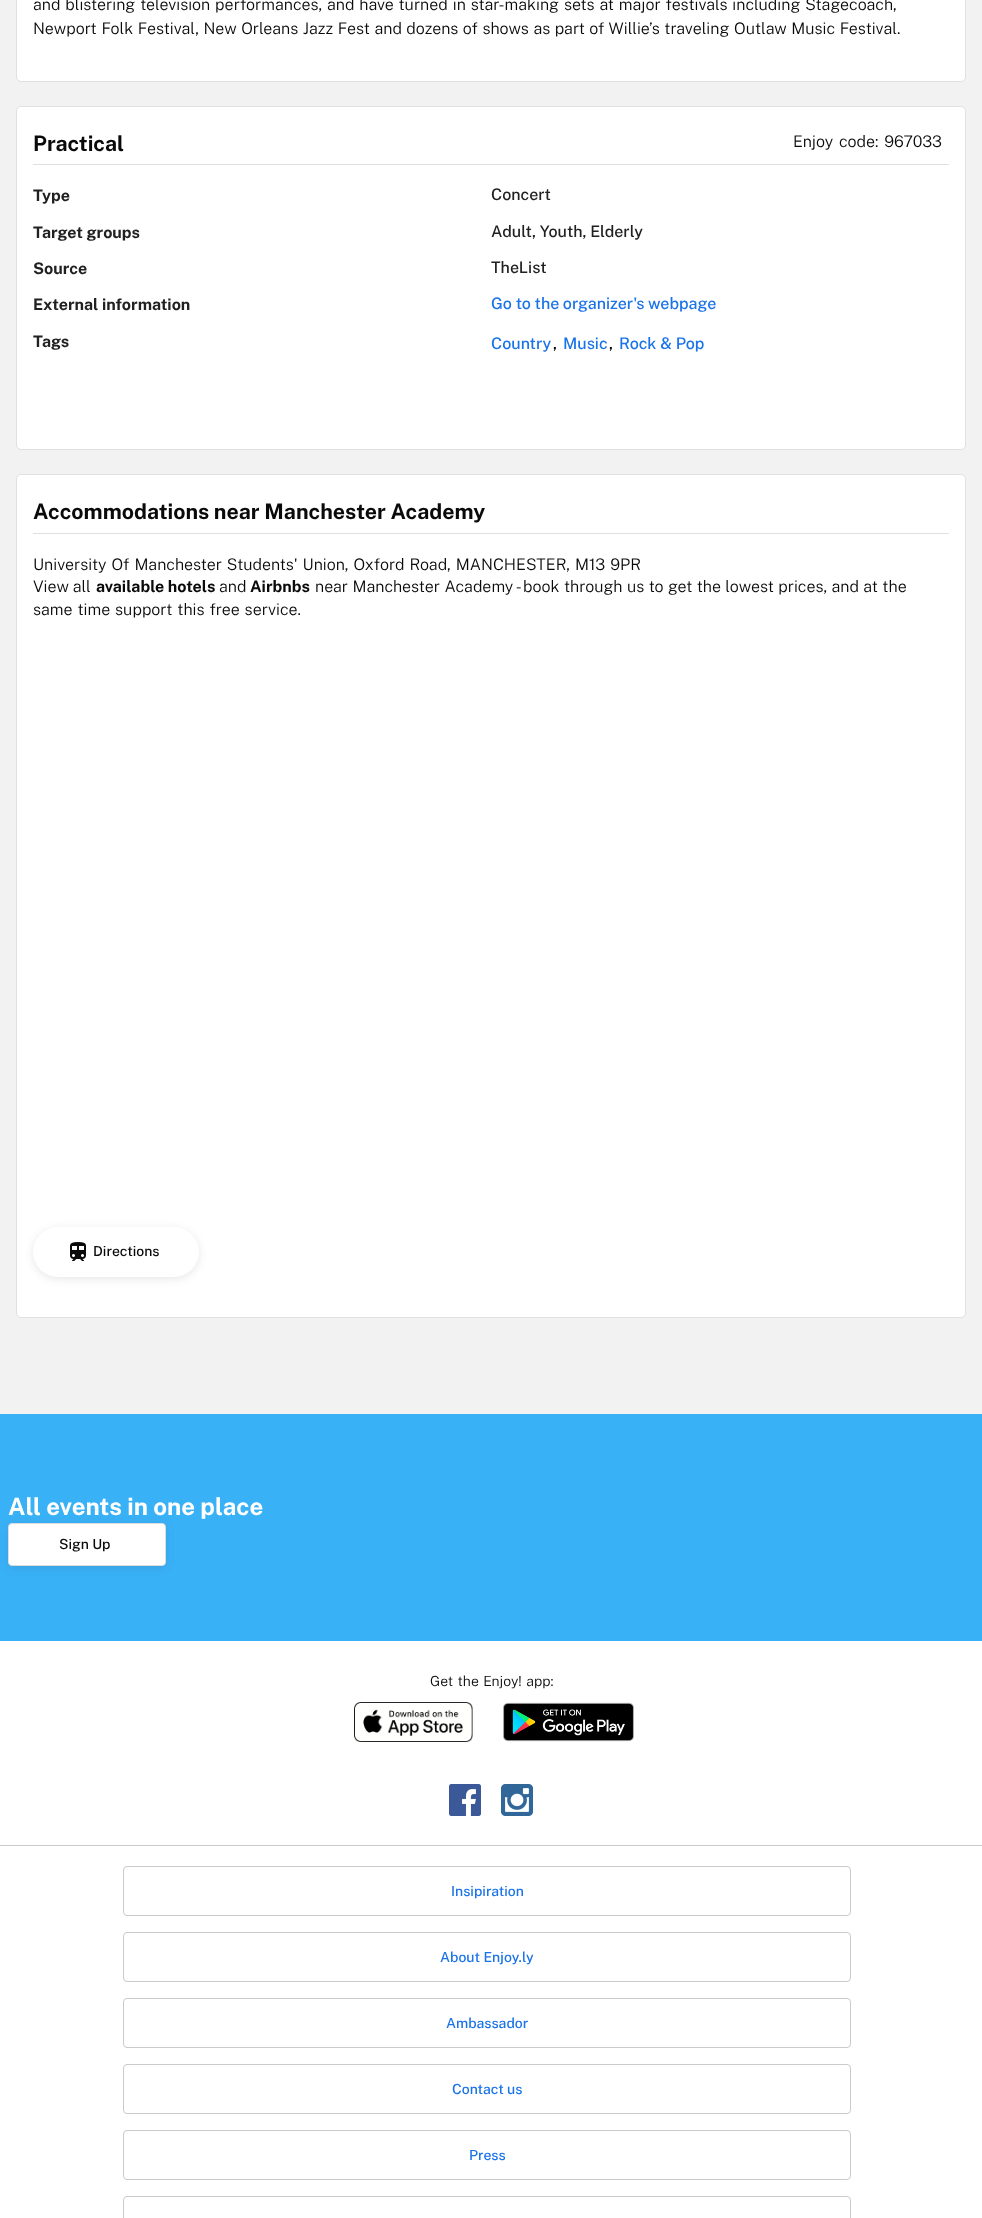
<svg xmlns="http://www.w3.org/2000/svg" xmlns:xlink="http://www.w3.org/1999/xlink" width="982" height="2218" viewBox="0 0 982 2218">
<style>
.cls-1{font:300 16px Public Sans;fill:#0a0a0a}
.cls-2{font:bold 21.3px Public Sans;fill:#0a0a0a}
.cls-3{font:bold 16px Public Sans;fill:#212121}
.cls-4{font:500 16px Public Sans;fill:#212121}
.cls-5{font:500 16px Public Sans;fill:#1a73e8}
.cls-6{font:500 16px Public Sans;fill:#000000}
.cls-7{font:bold 16px Public Sans;fill:#0a0a0a}
.cls-8{font:500 14px Public Sans;fill:#0a0a0a}
.cls-9{font:bold 24px Public Sans;fill:#ffffff}
.cls-10{font:300 14px Public Sans;fill:#0a0a0a}
.cls-11{font:500 14px Public Sans;fill:#1a73e8}
</style>
<rect width="100%" height="100%" fill="#ffffff"/>
<rect fill="#f2f2f2" x="0" y="0" width="982" height="1414"/>
<rect fill="#ffffff" stroke="#e0e0e0" x="16.5" y="-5.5" width="949" height="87" rx="4.5"/>
<rect fill="#ffffff" stroke="#e0e0e0" x="16.5" y="106.5" width="949" height="343" rx="4.5"/>
<rect fill="#e0e0e0" x="33" y="164" width="916" height="1"/>
<rect fill="#ffffff" stroke="#e0e0e0" x="16.5" y="474.5" width="949" height="843" rx="4.5"/>
<rect fill="#e0e0e0" x="33" y="533" width="916" height="1"/>
<rect fill="#383838" fill-opacity="0.12" filter="blur(4px)" x="33" y="1229" width="166" height="50" rx="25"/>
<rect fill="#ffffff" x="33" y="1227" width="166" height="50" rx="25"/>
<image xlink:href="image0.png" x="70" y="1242" width="16" height="19"/>
<rect fill="#39b1f7" x="0" y="1414" width="982" height="227"/>
<rect fill="#383838" fill-opacity="0.12" filter="blur(4px)" x="8" y="1525" width="158" height="43" rx="4"/>
<rect fill="#ffffff" stroke="#dddddd" x="8.5" y="1523.5" width="157" height="42" rx="3.5"/>
<image xlink:href="image1.png" x="354" y="1702" width="119" height="40"/>
<image xlink:href="image2.png" x="503" y="1702" width="131" height="40"/>
<image xlink:href="image3.png" x="449" y="1784" width="32" height="32"/>
<image xlink:href="image4.png" x="501" y="1784" width="32" height="32"/>
<rect fill="#cacaca" x="0" y="1845" width="982" height="1"/>
<rect fill="none" stroke="#cacaca" x="123.5" y="1866.5" width="727" height="49" rx="3.5"/>
<rect fill="none" stroke="#cacaca" x="123.5" y="1932.5" width="727" height="49" rx="3.5"/>
<rect fill="none" stroke="#cacaca" x="123.5" y="1998.5" width="727" height="49" rx="3.5"/>
<rect fill="none" stroke="#cacaca" x="123.5" y="2064.5" width="727" height="49" rx="3.5"/>
<rect fill="none" stroke="#cacaca" x="123.5" y="2130.5" width="727" height="49" rx="3.5"/>
<rect fill="none" stroke="#cacaca" x="123.5" y="2196.5" width="727" height="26" rx="3.5"/>
<text class="cls-1"><tspan x="33" y="10" word-spacing="0.9">and blistering television performances, and have turned in star-making sets at major festivals including Stagecoach,</tspan><tspan x="33" y="34" word-spacing="0.7">Newport Folk Festival, New Orleans Jazz Fest and dozens of shows as part of Willie’s traveling Outlaw Music Festival.</tspan></text>
<text class="cls-2" x="33" y="151">Practical</text>
<text class="cls-1" x="793" y="147" word-spacing="2">Enjoy code: 967033</text>
<text class="cls-3" x="33" y="201">Type</text>
<text class="cls-4" x="491" y="200">Concert</text>
<text class="cls-3" x="33" y="238">Target groups</text>
<text class="cls-4" x="491" y="237">Adult, Youth, Elderly</text>
<text class="cls-3" x="33" y="274">Source</text>
<text class="cls-4" x="491" y="273">TheList</text>
<text class="cls-3" x="33" y="310">External information</text>
<text class="cls-5" x="491" y="309">Go to the organizer's webpage</text>
<text class="cls-3" x="33" y="347">Tags</text>
<text class="cls-5" x="491" y="349">Country</text>
<text class="cls-6" x="553" y="349">,</text>
<text class="cls-5" x="563" y="349">Music</text>
<text class="cls-6" x="609" y="349">,</text>
<text class="cls-5" x="619" y="349">Rock &amp; Pop</text>
<text class="cls-2" x="33" y="519">Accommodations near Manchester Academy</text>
<text class="cls-1"><tspan x="33" y="570" word-spacing="1">University Of Manchester Students' Union, Oxford Road, MANCHESTER, M13 9PR</tspan><tspan x="33" y="592">View all</tspan></text>
<text class="cls-7" x="96" y="592">available hotels</text>
<text class="cls-1" x="219" y="592">and</text>
<text class="cls-7" x="250" y="592">Airbnbs</text>
<text class="cls-1" x="315" y="592" word-spacing="0.5">near Manchester Academy - book through us to get the lowest prices, and at the</text>
<text class="cls-1" x="33" y="615" word-spacing="1">same time support this free service.</text>
<text class="cls-8" x="93" y="1256">Directions</text>
<text class="cls-9" x="8" y="1515">All events in one place</text>
<text class="cls-8" x="59" y="1549">Sign Up</text>
<text class="cls-10" x="430" y="1686" word-spacing="1">Get the Enjoy! app:</text>
<text class="cls-11" x="451" y="1896">Insipiration</text>
<text class="cls-11" x="440" y="1962">About Enjoy.ly</text>
<text class="cls-11" x="446" y="2028">Ambassador</text>
<text class="cls-11" x="452" y="2094">Contact us</text>
<text class="cls-11" x="469" y="2160">Press</text>
</svg>
